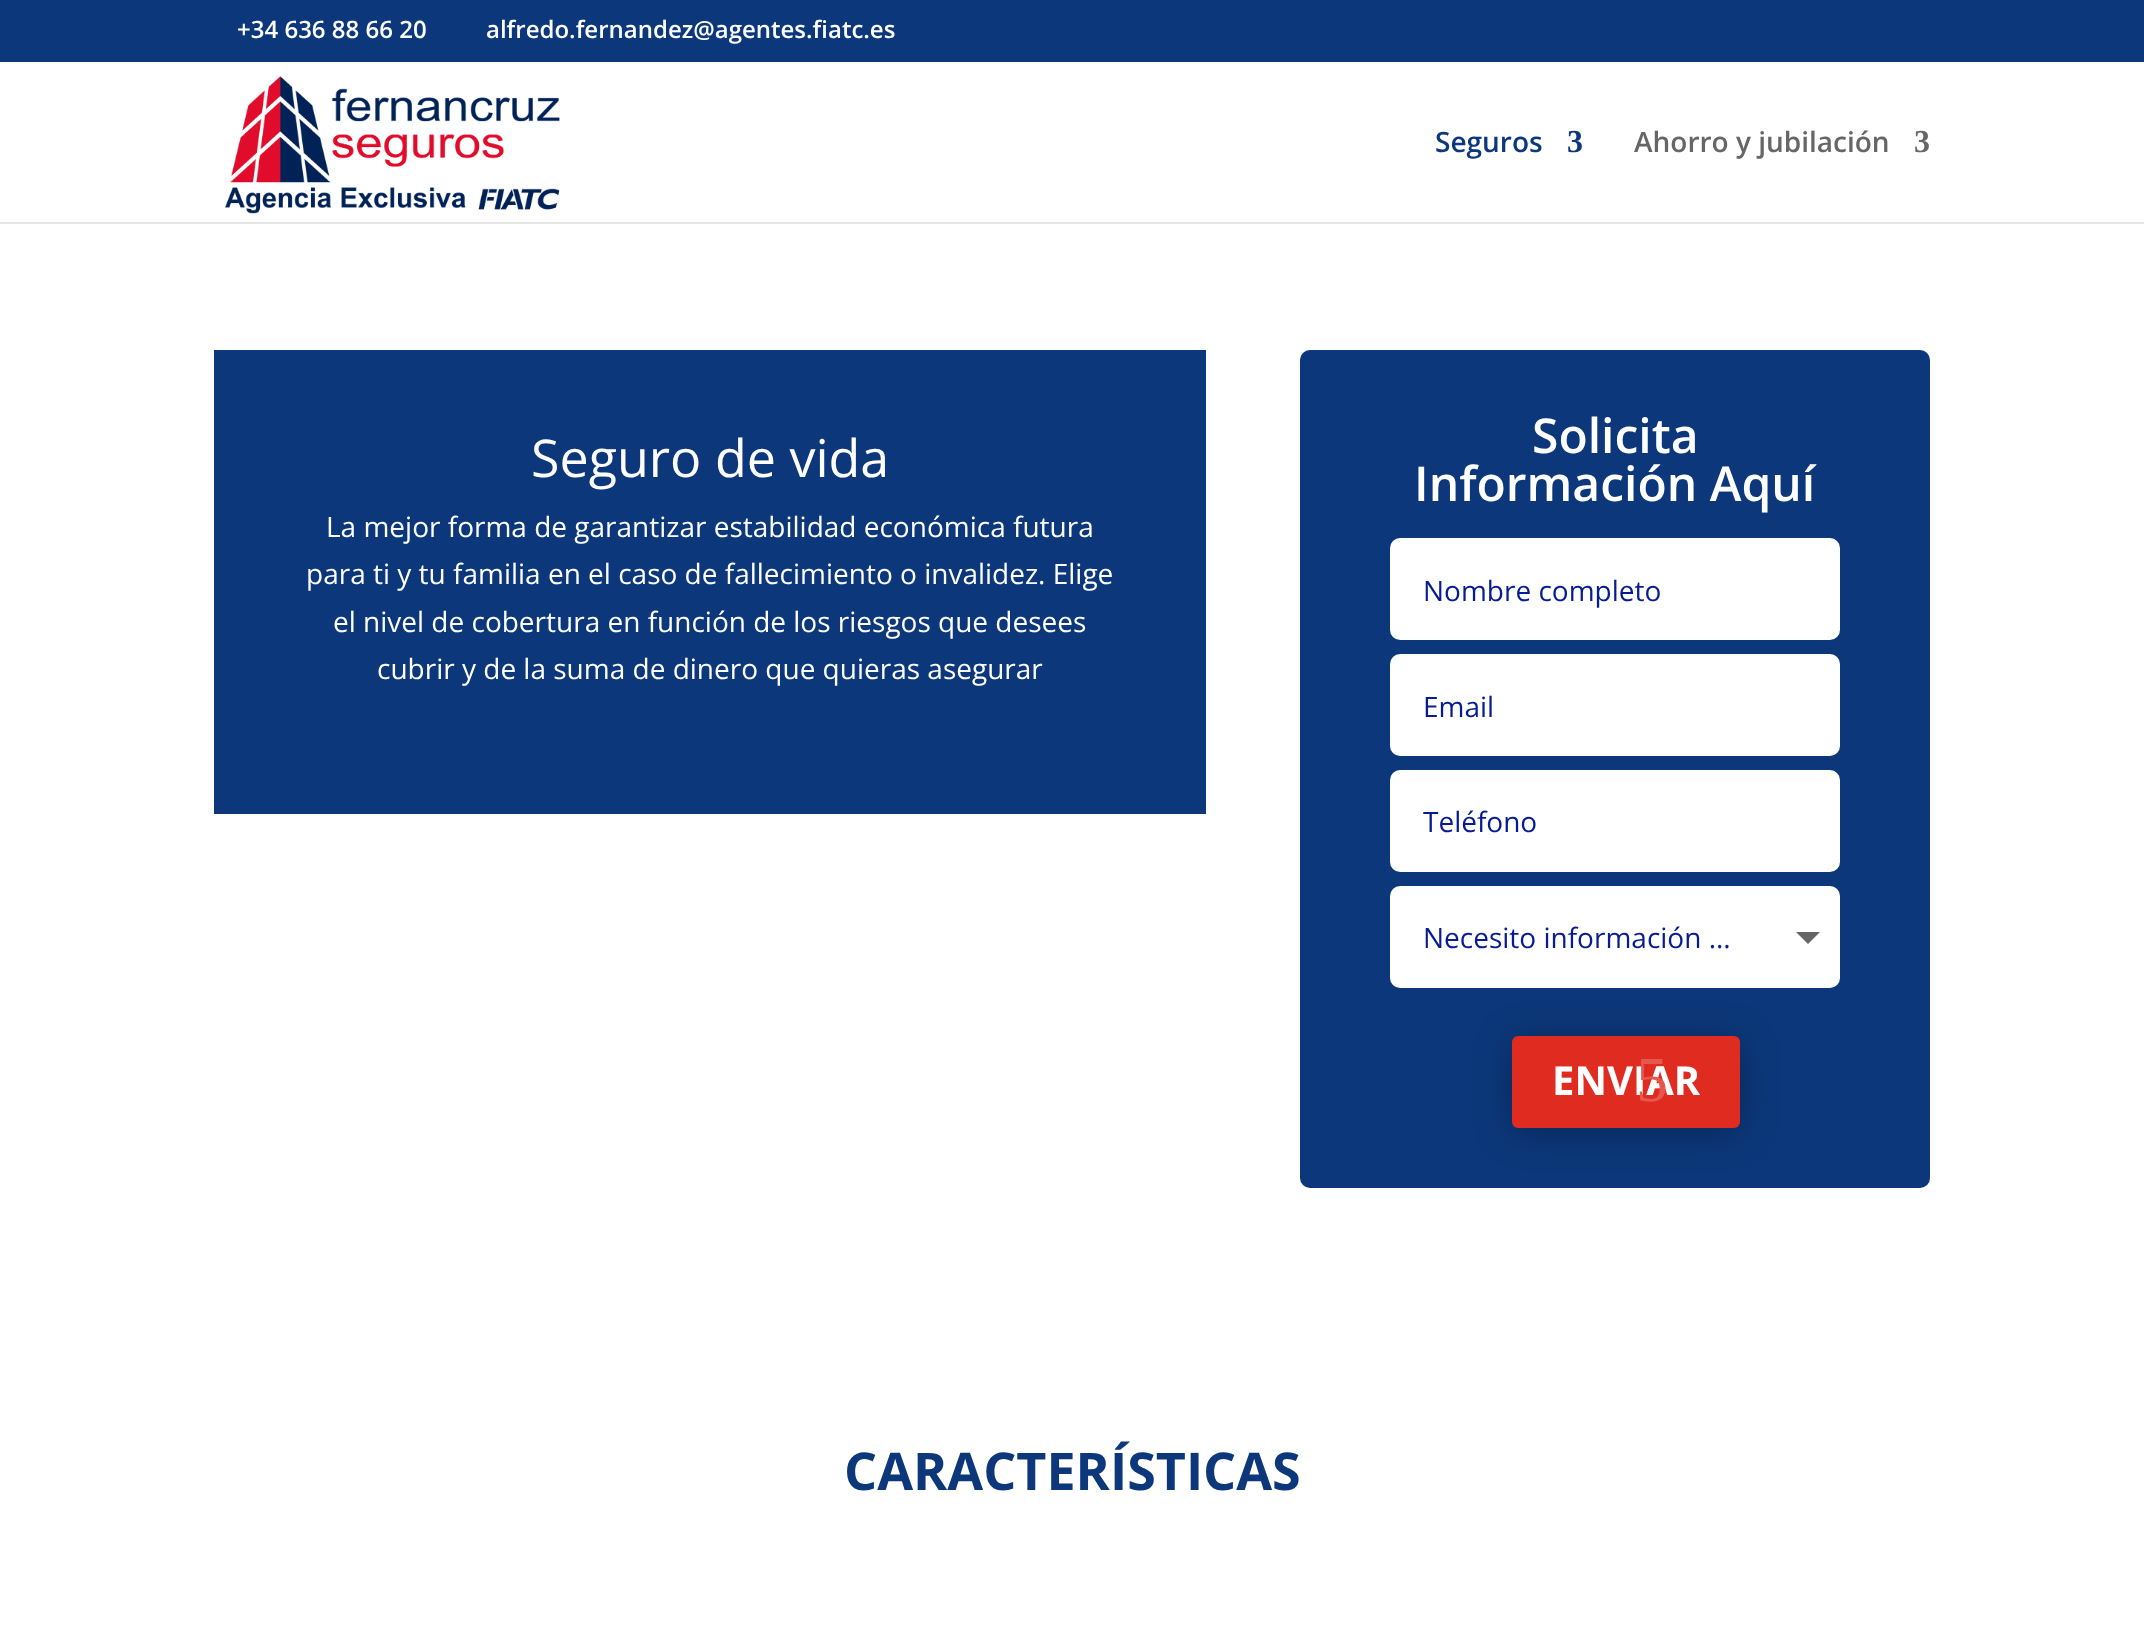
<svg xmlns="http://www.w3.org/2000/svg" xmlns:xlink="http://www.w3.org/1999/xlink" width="2144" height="1638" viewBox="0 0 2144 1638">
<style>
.cls-1{font:600 24px Open Sans;fill:#ffffff}
.cls-2{font:600 28px Open Sans;fill:#0c377b}
.cls-3{font:bold 32px Liberation Serif;fill:#0c377b}
.cls-4{font:600 28px Open Sans;fill:#666666}
.cls-5{font:bold 32px Liberation Serif;fill:#666666}
.cls-6{font:52px Open Sans;fill:#ffffff}
.cls-7{font:28px Open Sans;fill:#ffffff}
.cls-8{font:600 48px Open Sans;fill:#ffffff}
.cls-9{font:28px Open Sans;fill:#071c93}
.cls-10{font:bold 40px Open Sans;fill:#ffffff}
.cls-11{font:64px Liberation Serif;fill:#e6574e}
.cls-12{font:bold 52px Open Sans;fill:#0c377b}
</style>
<rect width="100%" height="100%" fill="#ffffff"/>
<rect fill="#0c387b" x="0" y="0" width="2144" height="62"/>
<rect fill="#e6e6e6" x="0" y="222" width="2144" height="2"/>
<image xlink:href="image0.png" x="225" y="76" width="335" height="138"/>
<rect fill="#0c387b" x="214" y="350" width="992" height="464"/>
<rect fill="#0c387b" x="1300" y="350" width="630" height="838" rx="10"/>
<rect fill="#ffffff" x="1390" y="538" width="450" height="102" rx="10"/>
<rect fill="#ffffff" x="1390" y="654" width="450" height="102" rx="10"/>
<rect fill="#ffffff" x="1390" y="770" width="450" height="102" rx="10"/>
<rect fill="#ffffff" x="1390" y="886" width="450" height="102" rx="10"/>
<path fill="#666666" d="M1796 932H1820L1808 944Z"/>
<rect fill="#000000" fill-opacity="0.3" filter="blur(18px)" x="1512" y="1040" width="228" height="92" rx="6"/>
<rect fill="#e02b20" x="1512" y="1036" width="228" height="92" rx="6"/>
<text class="cls-1" x="237" y="38">+34 636 88 66 20</text>
<text class="cls-1" x="486" y="38">alfredo.fernandez@agentes.fiatc.es</text>
<text class="cls-2" x="1435" y="152">Seguros</text>
<text class="cls-3" x="1567" y="152">3</text>
<text class="cls-4" x="1634" y="152">Ahorro y jubilación</text>
<text class="cls-5" x="1914" y="152">3</text>
<text class="cls-6" x="531" y="477">Seguro de vida</text>
<text class="cls-7" x="326" y="537">La mejor forma de garantizar estabilidad económica futura</text>
<text class="cls-7" x="306" y="584">para ti y tu familia en el caso de fallecimiento o invalidez. Elige</text>
<text class="cls-7" x="333" y="632">el nivel de cobertura en función de los riesgos que desees</text>
<text class="cls-7" x="377" y="679">cubrir y de la suma de dinero que quieras asegurar</text>
<text class="cls-8" x="1532" y="453">Solicita</text>
<text class="cls-8" x="1414" y="501">Información Aquí</text>
<text class="cls-9" x="1423" y="601">Nombre completo</text>
<text class="cls-9" x="1423" y="717">Email</text>
<text class="cls-9" x="1423" y="832">Teléfono</text>
<text class="cls-9" x="1423" y="948">Necesito información ...</text>
<text class="cls-10" x="1552" y="1095">ENVIAR</text>
<text class="cls-11" x="1636" y="1101">5</text>
<text class="cls-12" x="844" y="1490">CARACTERÍSTICAS</text>
</svg>
